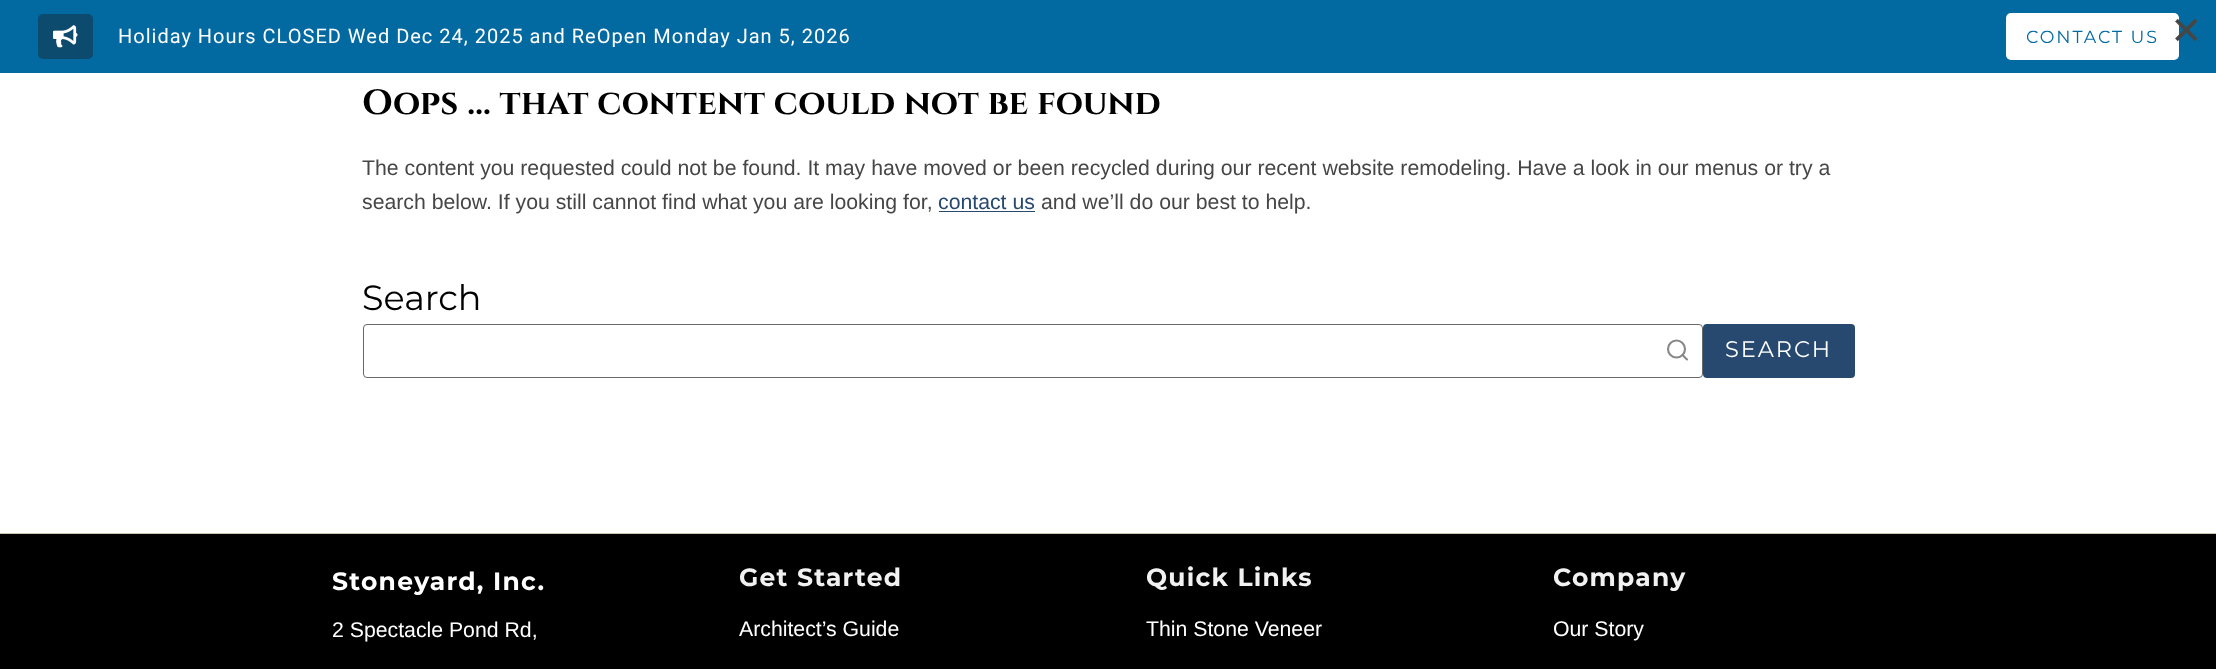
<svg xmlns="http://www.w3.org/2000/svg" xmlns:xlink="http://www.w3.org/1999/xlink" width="2216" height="669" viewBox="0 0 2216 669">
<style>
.cls-1{font:20px Roboto;letter-spacing:1px;fill:#ffffff}
.cls-2{font:17.5px Montserrat;letter-spacing:1.9px;fill:#0369a1}
.cls-3{font:bold 35px Cinzel;fill:#000000}
.cls-4{font:21.25px Liberation Sans;fill:#464646}
.cls-5{font:21.25px Liberation Sans;fill:#27496f}
.cls-6{font:35px Montserrat;fill:#000000}
.cls-7{font:22.5px Montserrat;letter-spacing:1.9px;fill:#ffffff}
.cls-8{font:bold 25px Montserrat;letter-spacing:1.25px;fill:#ffffff}
.cls-9{font:21.25px Liberation Sans;fill:#ffffff}
.cls-10{font:bold 25px Montserrat;letter-spacing:1.25px;fill:#f1f1f1}
</style>
<rect width="100%" height="100%" fill="#ffffff"/>
<rect fill="#0369a1" x="0" y="0" width="2216" height="73"/>
<rect fill="#0c4a6e" x="38" y="14" width="55" height="45" rx="5"/>
<image xlink:href="image0.png" x="53" y="25" width="25" height="23"/>
<rect fill="#ffffff" x="2006" y="13" width="173" height="47" rx="5"/>
<image xlink:href="image1.png" x="2175" y="18" width="23" height="24"/>
<rect fill="#27496f" x="939" y="211" width="96" height="1"/>
<rect fill="none" stroke="#686868" x="363.5" y="324.5" width="1339" height="53" rx="3.5"/>
<circle fill="none" stroke="#888888" stroke-width="2.1" cx="1676.5" cy="349" r="8.5"/>
<path fill="none" stroke="#888888" stroke-width="2.1" stroke-linecap="round" stroke-linejoin="round" d="M1687 359.5L1682.5 355"/>
<rect fill="#27496f" x="1703" y="324" width="152" height="54" rx="4"/>
<rect fill="#000000" x="0" y="534" width="2216" height="135"/>
<rect fill="#ccc6af" x="0" y="533" width="2216" height="1"/>
<text class="cls-1" x="118" y="43">Holiday Hours CLOSED Wed Dec 24, 2025 and ReOpen Monday Jan 5, 2026</text>
<text class="cls-2" x="2026" y="43">CONTACT US</text>
<text class="cls-3" x="362" y="114">Oops … that content could not be found</text>
<text class="cls-4"><tspan x="362" y="175">The content you requested could not be found. It may have moved or been recycled during our recent website remodeling. Have a look in our menus or try a</tspan><tspan x="362" y="209">search below. If you still cannot find what you are looking for,</tspan></text>
<text class="cls-5" x="938" y="209">contact us</text>
<text class="cls-4" x="1041" y="209">and we’ll do our best to help.</text>
<text class="cls-6" x="362" y="310">Search</text>
<text class="cls-7" x="1725" y="357">SEARCH</text>
<text class="cls-8" x="332" y="590">Stoneyard, Inc.</text>
<text class="cls-9" x="332" y="637">2 Spectacle Pond Rd,</text>
<text class="cls-10" x="739" y="586">Get Started</text>
<text class="cls-9" x="739" y="636">Architect’s Guide</text>
<text class="cls-10" x="1146" y="586">Quick Links</text>
<text class="cls-9" x="1146" y="636">Thin Stone Veneer</text>
<text class="cls-10" x="1553" y="586">Company</text>
<text class="cls-9" x="1553" y="636">Our Story</text>
</svg>
